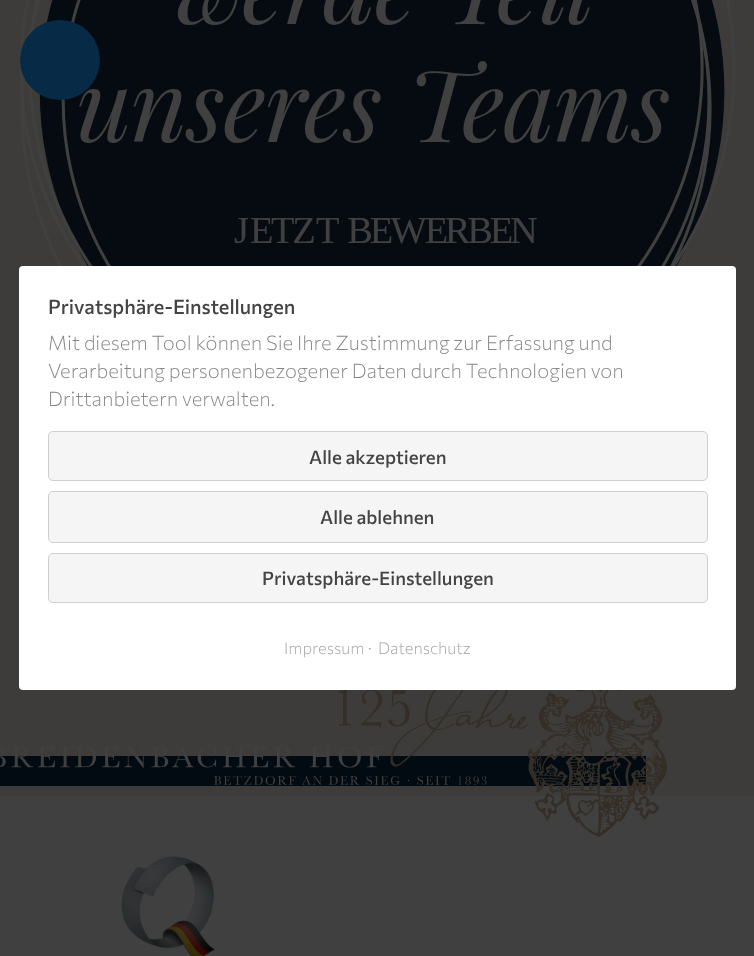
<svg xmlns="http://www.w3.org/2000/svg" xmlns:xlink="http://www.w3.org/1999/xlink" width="754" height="956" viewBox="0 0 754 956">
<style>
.cls-1{font:500 20px Commissioner;fill:#444444}
.cls-2{font:200 20px Commissioner;fill:#868686}
.cls-3{font:500 18.75px Commissioner;fill:#444444}
.cls-4{font:200 16.25px Commissioner;fill:#a2a2a2}
</style>
<rect width="100%" height="100%" fill="#404040"/>
<rect fill="#3d3c3a" x="0" y="0" width="754" height="796"/>
<image xlink:href="image0.png" x="19" y="0" width="717" height="266"/>
<rect fill="#020b12" x="0" y="756" width="646" height="30"/>
<image xlink:href="image1.png" x="0" y="690" width="667" height="147"/>
<image xlink:href="image2.png" x="121" y="856" width="94" height="100"/>
<circle fill="#072b46" cx="60" cy="60" r="40"/>
<rect fill="#ffffff" x="19" y="266" width="717" height="424" rx="4"/>
<rect fill="#f5f5f5" stroke="#cfcfcf" x="48.5" y="431.5" width="659" height="49" rx="4.5"/>
<rect fill="#f5f5f5" stroke="#cfcfcf" x="48.5" y="491.5" width="659" height="51" rx="4.5"/>
<rect fill="#f5f5f5" stroke="#cfcfcf" x="48.5" y="553.5" width="659" height="49" rx="4.5"/>
<text class="cls-1" x="48" y="314">Privatsphäre-Einstellungen</text>
<text class="cls-2"><tspan x="48" y="350">Mit diesem Tool können Sie Ihre Zustimmung zur Erfassung und</tspan><tspan x="48" y="378">Verarbeitung personenbezogener Daten durch Technologien von</tspan><tspan x="48" y="406">Drittanbietern verwalten.</tspan></text>
<text class="cls-3" x="309" y="464">Alle akzeptieren</text>
<text class="cls-3" x="320" y="524">Alle ablehnen</text>
<text class="cls-3" x="262" y="585">Privatsphäre-Einstellungen</text>
<text class="cls-4" x="284" y="654">Impressum</text>
<text class="cls-4" x="368" y="654">·</text>
<text class="cls-4" x="378" y="654">Datenschutz</text>
</svg>
